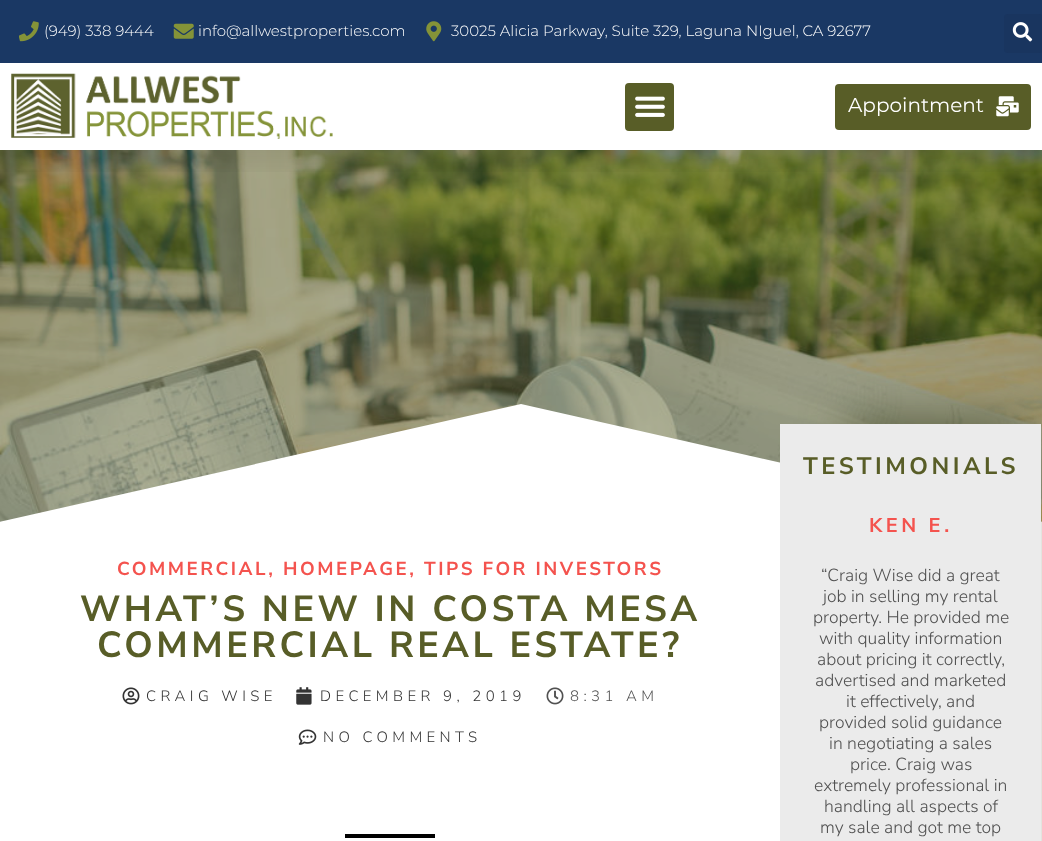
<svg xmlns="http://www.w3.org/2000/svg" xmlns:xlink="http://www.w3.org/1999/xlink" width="1042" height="841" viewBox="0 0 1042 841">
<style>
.cls-1{font:300 15px Montserrat;fill:#ffffff}
.cls-2{font:20px Montserrat;fill:#ffffff}
.cls-3{font:bold 18.75px Nunito Sans;letter-spacing:2.5px;fill:#f4534e}
.cls-4{font:bold 36.25px Nunito Sans;letter-spacing:3.5px;fill:#585d27}
.cls-5{font:300 15px Nunito Sans;letter-spacing:4.4px;fill:#333333}
.cls-6{font:300 15px Nunito Sans;letter-spacing:4.4px;fill:#515151}
.cls-7{font:bold 23.75px Nunito Sans;letter-spacing:3.5px;fill:#585d27}
.cls-8{font:bold 20px Nunito Sans;letter-spacing:3.5px;fill:#f4534e}
.cls-9{font:300 17.5px Nunito Sans;fill:#515151}
</style>
<defs>
<clipPath id="clip1"><rect x="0" y="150" width="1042" height="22"/></clipPath>
</defs>
<rect width="100%" height="100%" fill="#ffffff"/>
<image xlink:href="image7.png" x="0" y="150" width="1042" height="372"/>
<g clip-path="url(#clip1)">
<rect fill="#000000" fill-opacity="0.1" filter="blur(19px)" x="0" y="6" width="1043" height="150"/>
</g>
<rect fill="#1a3864" x="0" y="0" width="1042" height="63"/>
<image xlink:href="image0.png" x="19" y="21" width="20" height="21"/>
<image xlink:href="image1.png" x="173" y="23" width="21" height="16"/>
<image xlink:href="image2.png" x="426" y="21" width="16" height="21"/>
<rect fill="#19355f" x="1004" y="14" width="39" height="39" rx="4"/>
<image xlink:href="image3.png" x="1012" y="22" width="21" height="20"/>
<image xlink:href="image4.png" x="11" y="73" width="322" height="66"/>
<rect fill="#585d27" x="625" y="83" width="49" height="48" rx="4"/>
<image xlink:href="image5.png" x="635" y="96" width="30" height="21"/>
<rect fill="#585d27" x="835" y="84" width="196" height="46" rx="4"/>
<image xlink:href="image6.png" x="996" y="96" width="23" height="21"/>
<path fill="#ffffff" d="M521 404L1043 522V530H-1V522Z"/>
<image xlink:href="image8.png" x="122" y="687" width="18" height="18"/>
<image xlink:href="image9.png" x="296" y="687" width="16" height="18"/>
<image xlink:href="image10.png" x="546" y="687" width="18" height="18"/>
<image xlink:href="image11.png" x="298" y="729" width="19" height="16"/>
<rect fill="#000000" x="345" y="834" width="90" height="4"/>
<rect fill="#393d18" fill-opacity="0.62" filter="blur(24px)" x="848" y="420" width="176" height="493"/>
<rect fill="#ebebeb" x="780" y="424" width="261" height="417"/>
<text class="cls-1" x="44" y="36">(949) 338 9444</text>
<text class="cls-1" x="198" y="36">info@allwestproperties.com</text>
<text class="cls-1" x="451" y="36">30025 Alicia Parkway, Suite 329, Laguna NIguel, CA 92677</text>
<text class="cls-2" x="848" y="112">Appointment</text>
<text class="cls-3" x="117" y="575">COMMERCIAL, HOMEPAGE, TIPS FOR INVESTORS</text>
<text class="cls-4" x="80" y="621">WHAT’S NEW IN COSTA MESA</text>
<text class="cls-4" x="97" y="657">COMMERCIAL REAL ESTATE?</text>
<text class="cls-5" x="146" y="701">CRAIG WISE</text>
<text class="cls-5" x="320" y="701">DECEMBER 9, 2019</text>
<text class="cls-6" x="570" y="701">8:31 AM</text>
<text class="cls-5" x="323" y="742">NO COMMENTS</text>
<text class="cls-7" x="803" y="474">TESTIMONIALS</text>
<text class="cls-8" x="869" y="532">KEN E.</text>
<text class="cls-9" x="821" y="581">“Craig Wise did a great</text>
<text class="cls-9" x="823" y="602">job in selling my rental</text>
<text class="cls-9" x="813" y="623">property. He provided me</text>
<text class="cls-9" x="819" y="644">with quality information</text>
<text class="cls-9" x="817" y="665">about pricing it correctly,</text>
<text class="cls-9" x="815" y="686">advertised and marketed</text>
<text class="cls-9" x="846" y="707">it effectively, and</text>
<text class="cls-9" x="819" y="728">provided solid guidance</text>
<text class="cls-9" x="829" y="749">in negotiating a sales</text>
<text class="cls-9" x="850" y="770">price. Craig was</text>
<text class="cls-9" x="814" y="791">extremely professional in</text>
<text class="cls-9" x="824" y="812">handling all aspects of</text>
<text class="cls-9" x="820" y="833">my sale and got me top</text>
</svg>
